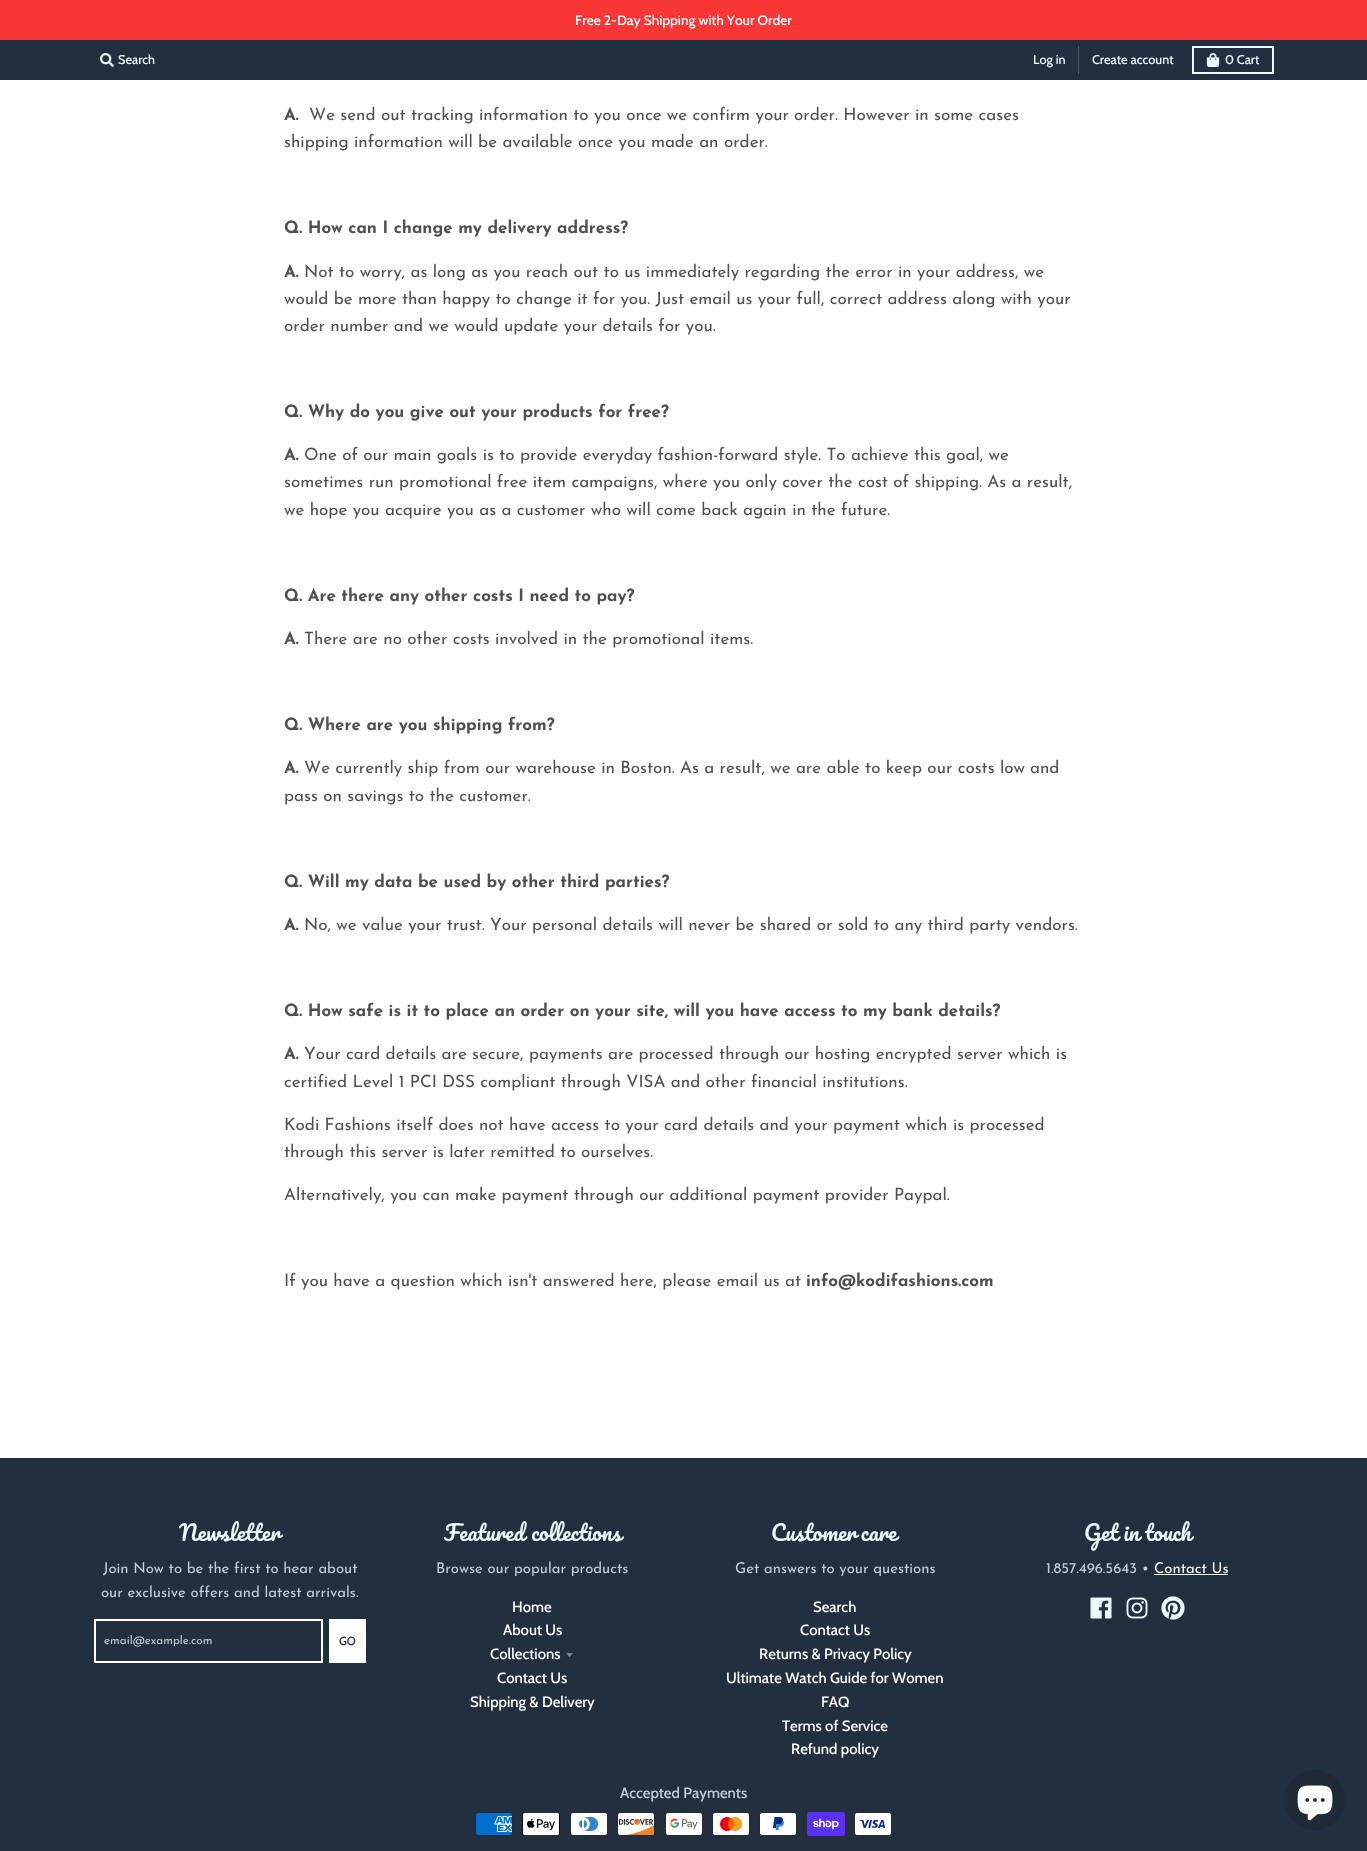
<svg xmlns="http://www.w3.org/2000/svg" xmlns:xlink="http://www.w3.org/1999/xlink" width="1367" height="1851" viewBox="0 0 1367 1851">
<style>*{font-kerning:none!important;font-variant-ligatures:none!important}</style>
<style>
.cls-1{font:500 13.75px Cabin;fill:#ffffff}
.cls-2{font:500 12.75px Cabin;fill:#e9f9ff}
.cls-3{font:bold 17px Josefin Sans;fill:#4f4f4f}
.cls-4{font:17px Josefin Sans;fill:#4f4f4f}
.cls-5{font:21.25px Pacifico;fill:#e9f9ff}
.cls-6{font:14.9px Josefin Sans;fill:#c1d0d8}
.cls-7{font:11.75px Josefin Sans;fill:#c1d0d8}
.cls-8{font:500 11.75px Cabin;fill:#222f3e}
.cls-9{font:500 14.9px Cabin;fill:#ffffff}
.cls-10{font:14.9px Josefin Sans;fill:#ffffff}
.cls-11{font:500 14.9px Cabin;fill:#c1d0d8}
</style>
<rect width="100%" height="100%" fill="#ffffff"/>
<rect fill="#f83636" x="0" y="0" width="1367" height="40"/>
<rect fill="#222f3e" x="0" y="40" width="1367" height="40"/>
<image xlink:href="image0.png" x="100" y="53" width="14" height="14"/>
<rect fill="#495764" x="1078" y="46" width="1" height="28"/>
<rect fill="none" stroke="#e9f9ff" stroke-width="2" x="1193" y="47" width="80" height="26"/>
<image xlink:href="image1.png" x="1206" y="53" width="14" height="14"/>
<rect fill="#222f3e" x="0" y="1458" width="1367" height="393"/>
<rect fill="none" stroke="#ffffff" stroke-width="2" x="95" y="1620" width="227" height="42"/>
<rect fill="#ffffff" x="329" y="1619" width="37" height="44"/>
<path fill="#7a828b" d="M566 1653C570.5 1658.5 568.5 1658.5 573 1653Z"/>
<rect fill="#ffffff" x="1154" y="1574" width="74" height="1"/>
<image xlink:href="image2.png" x="1090" y="1597" width="22" height="22"/>
<image xlink:href="image3.png" x="1126" y="1597" width="22" height="22"/>
<image xlink:href="image4.png" x="1161" y="1596" width="24" height="24"/>
<image xlink:href="image5.png" x="475" y="1812" width="38" height="24"/>
<image xlink:href="image6.png" x="522" y="1812" width="38" height="24"/>
<image xlink:href="image7.png" x="570" y="1812" width="38" height="24"/>
<image xlink:href="image8.png" x="617" y="1812" width="38" height="24"/>
<image xlink:href="image9.png" x="665" y="1812" width="38" height="24"/>
<image xlink:href="image10.png" x="712" y="1812" width="38" height="24"/>
<image xlink:href="image11.png" x="759" y="1812" width="38" height="24"/>
<image xlink:href="image12.png" x="807" y="1812" width="38" height="24"/>
<image xlink:href="image13.png" x="854" y="1812" width="38" height="24"/>
<circle fill="#202a36" cx="1315" cy="1800" r="30"/>
<image xlink:href="image14.png" x="1297" y="1785" width="36" height="36"/>
<text class="cls-1" x="575" y="25">Free 2-Day Shipping with Your Order</text>
<text class="cls-2" x="118" y="64">Search</text>
<text class="cls-2" x="1033" y="64">Log in</text>
<text class="cls-2" x="1092" y="64">Create account</text>
<text class="cls-2" x="1225" y="64">0 Cart</text>
<text class="cls-3" x="284" y="120">A.</text>
<text class="cls-4" x="309" y="120">We send out tracking information to you once we confirm your</text>
<text class="cls-4" x="794" y="120">order. However in some cases</text>
<text class="cls-4" x="284" y="147">shipping information will be available once you made an order.</text>
<text class="cls-3" x="284" y="233">Q. How can I change my delivery address?</text>
<text class="cls-3" x="284" y="277">A.</text>
<text class="cls-4" x="304" y="277">Not to worry, as long as you reach out to us immediately regarding the error in your address, we</text>
<text class="cls-4"><tspan x="284" y="304">would be more than happy to change it for you. Just email us your full, correct address along with your</tspan><tspan x="284" y="331">order number and we would update your details for you.</tspan></text>
<text class="cls-3" x="284" y="417">Q. Why do you give out your products for free?</text>
<text class="cls-3" x="284" y="460">A.</text>
<text class="cls-4" x="304" y="460">One of our main goals is to provide everyday fashion-forward style. To</text>
<text class="cls-4" x="851" y="460">achieve this goal, we</text>
<text class="cls-4"><tspan x="284" y="487">sometimes run promotional free item campaigns, where you only cover the cost of shipping. As a result,</tspan><tspan x="284" y="515">we hope you acquire you as a customer who will come back again in the future.</tspan></text>
<text class="cls-3" x="284" y="601">Q. Are there any other costs I need to pay?</text>
<text class="cls-3" x="284" y="644">A.</text>
<text class="cls-4" x="304" y="644">There are no other costs involved in the promotional items.</text>
<text class="cls-3" x="284" y="730">Q. Where are you shipping from?</text>
<text class="cls-3" x="284" y="773">A.</text>
<text class="cls-4" x="304" y="773">We currently ship from our warehouse in Boston. As a result, we are able to keep our costs low</text>
<text class="cls-4" x="1030" y="773">and</text>
<text class="cls-4" x="284" y="801">pass on savings to the customer.</text>
<text class="cls-3" x="284" y="887">Q. Will my data be used by other third parties?</text>
<text class="cls-3" x="284" y="930">A.</text>
<text class="cls-4" x="304" y="930">No, we value your trust. Your personal details will never be shared or sold to any third party vendors.</text>
<text class="cls-3" x="284" y="1016">Q. How safe is it to place an order on your site, will you have access to my bank details?</text>
<text class="cls-3" x="284" y="1059">A.</text>
<text class="cls-4" x="304" y="1059">Your card details are secure, payments are processed through our hosting encrypted server which is</text>
<text class="cls-4" x="284" y="1087">certified Level 1 PCI DSS compliant through VISA and other financial institutions.</text>
<text class="cls-4"><tspan x="284" y="1130">Kodi Fashions itself does not have access to your card details and your payment which is processed</tspan><tspan x="284" y="1157">through this server is later remitted to ourselves.</tspan></text>
<text class="cls-4" x="284" y="1200">Alternatively, you can make payment through our additional payment provider Paypal.</text>
<text class="cls-4" x="284" y="1286">If you have a question which isn't answered here, please email us at</text>
<text class="cls-3" x="806" y="1286">info@kodifashions.com</text>
<text class="cls-5" x="179" y="1541">Newsletter</text>
<text class="cls-6" x="103" y="1573">Join Now to be the first to hear about</text>
<text class="cls-6" x="101" y="1597">our exclusive offers and latest arrivals.</text>
<text class="cls-7" x="104" y="1644">email@example.com</text>
<text class="cls-8" x="339" y="1645">GO</text>
<text class="cls-5" x="444" y="1541" word-spacing="1">Featured collections</text>
<text class="cls-6" x="436" y="1573">Browse our popular products</text>
<text class="cls-9" x="512" y="1612">Home</text>
<text class="cls-9" x="503" y="1635">About Us</text>
<text class="cls-9" x="490" y="1659">Collections</text>
<text class="cls-9" x="497" y="1683">Contact Us</text>
<text class="cls-9" x="470" y="1707">Shipping &amp; Delivery</text>
<text class="cls-5" x="771" y="1541" word-spacing="-1">Customer care</text>
<text class="cls-6" x="735" y="1573">Get answers to your questions</text>
<text class="cls-9" x="813" y="1612">Search</text>
<text class="cls-9" x="800" y="1635">Contact Us</text>
<text class="cls-9" x="759" y="1659">Returns &amp; Privacy Policy</text>
<text class="cls-9" x="726" y="1683">Ultimate Watch Guide for Women</text>
<text class="cls-9" x="821" y="1707">FAQ</text>
<text class="cls-9" x="782" y="1731">Terms of Service</text>
<text class="cls-9" x="791" y="1754">Refund policy</text>
<text class="cls-5" x="1084" y="1541">Get in touch</text>
<text class="cls-6" x="1046" y="1573">1.857.496.5643 •</text>
<text class="cls-10" x="1154" y="1573">Contact Us</text>
<text class="cls-11" x="620" y="1798">Accepted Payments</text>
</svg>
